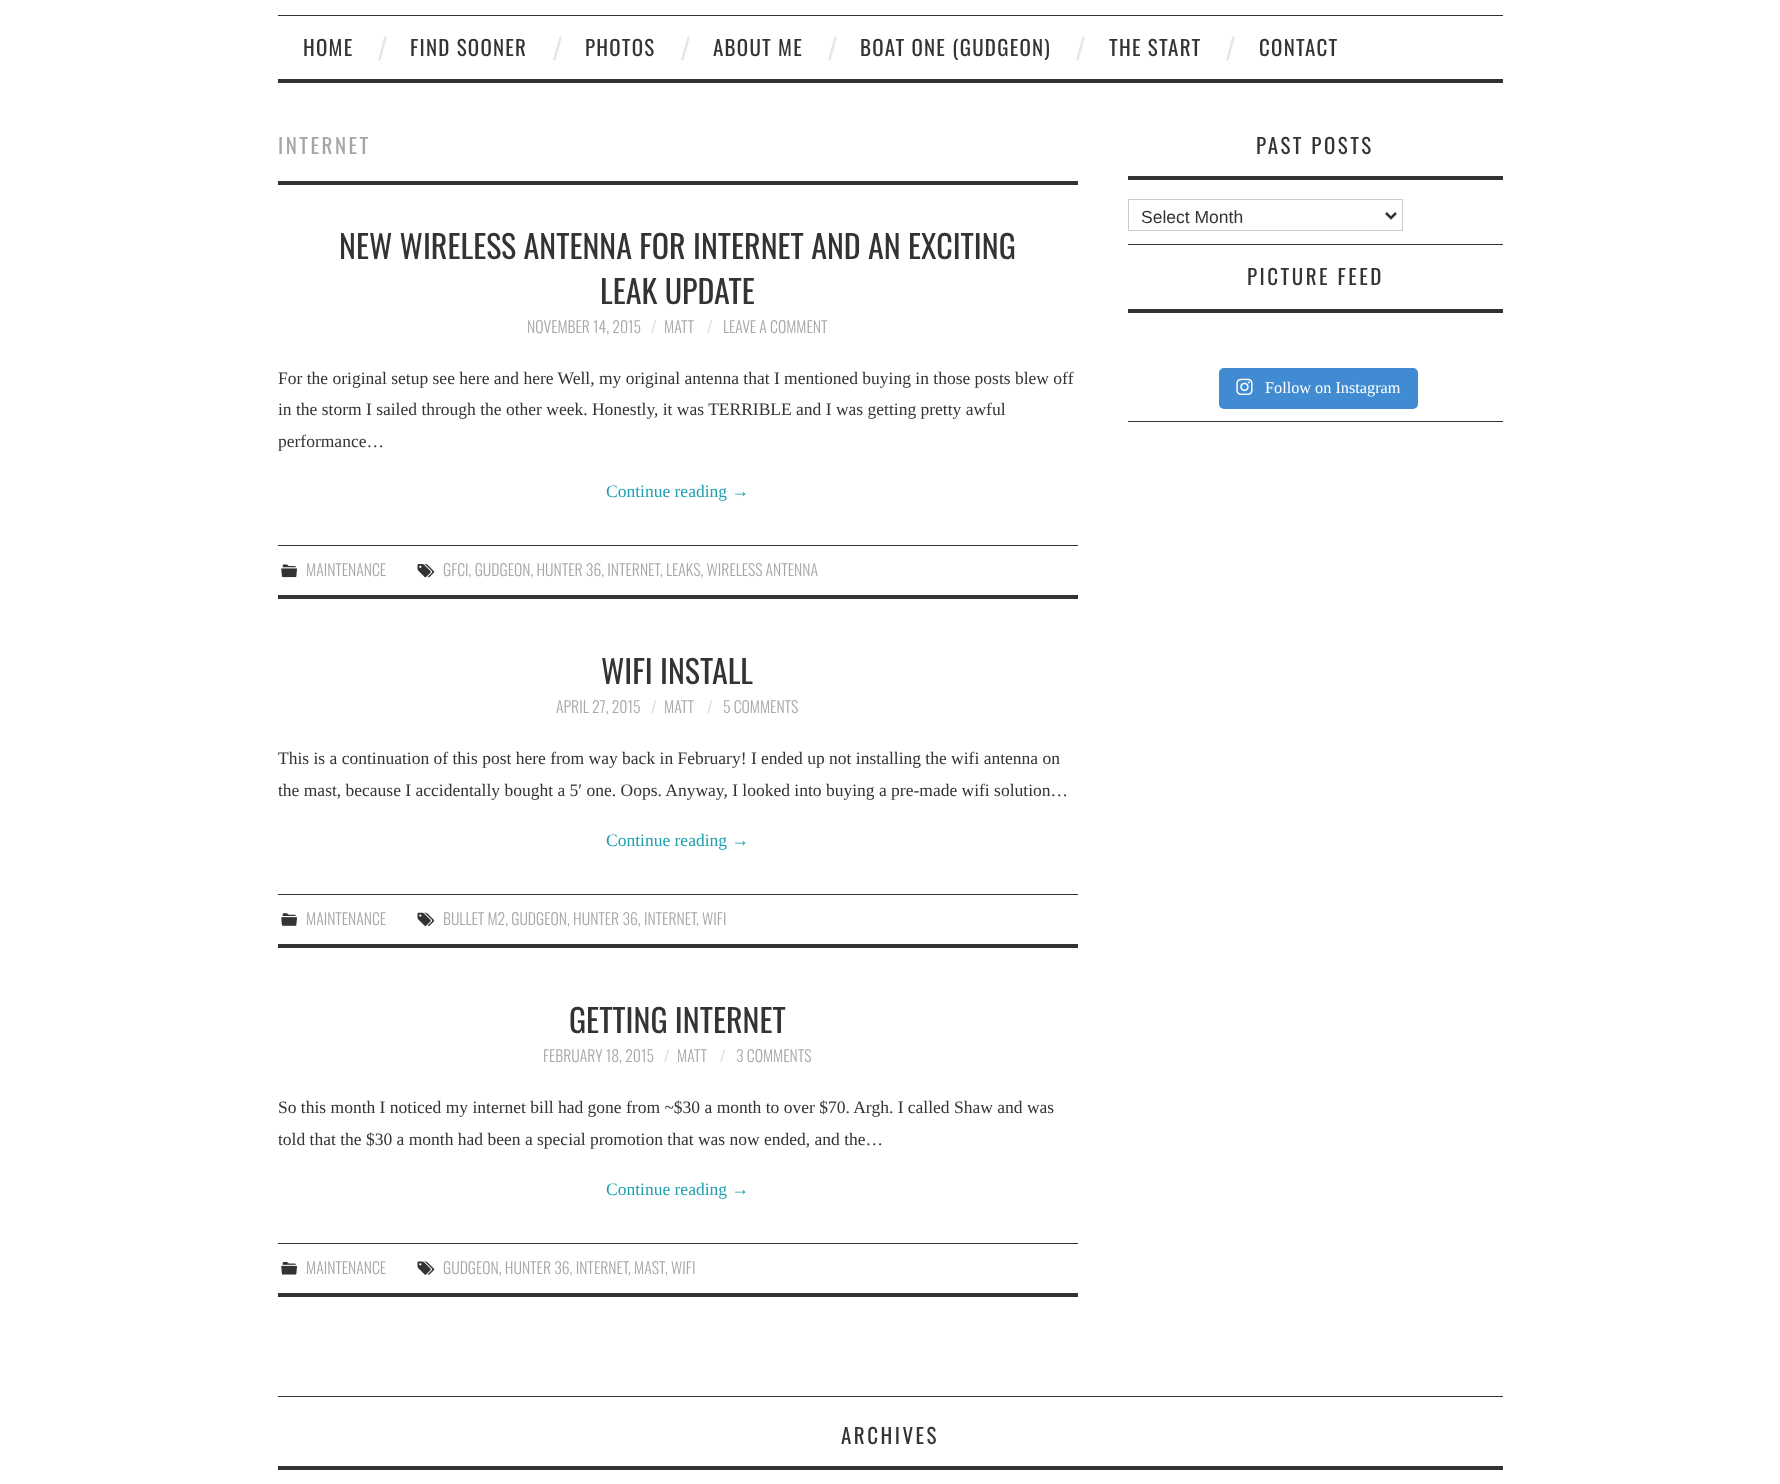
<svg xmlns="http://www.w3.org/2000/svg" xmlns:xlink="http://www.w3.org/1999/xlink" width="1780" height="1484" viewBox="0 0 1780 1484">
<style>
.cls-1{font:21px Oswald;letter-spacing:1.25px;fill:#333333}
.cls-2{font:32px Liberation Sans;fill:#e6e6e6}
.cls-3{font:21px Oswald;letter-spacing:2.5px;fill:#a6a6a6}
.cls-4{font:32px Oswald;fill:#333333}
.cls-5{font:300 15.75px Oswald;fill:#a6a6a6}
.cls-6{font:300 15.75px Oswald;fill:#d6d6d6}
.cls-7{font:17.5px Liberation Serif;fill:#333333}
.cls-8{font:17.5px Liberation Serif;fill:#1fa0ae}
.cls-9{font:21px Oswald;letter-spacing:2.5px;fill:#333333}
.cls-10{font:17.5px Liberation Sans;fill:#333333}
.cls-11{font:16.25px Liberation Serif;fill:#ffffff}
</style>
<rect width="100%" height="100%" fill="#ffffff"/>
<rect fill="#333333" x="278" y="15" width="1225" height="1"/>
<rect fill="#333333" x="278" y="79" width="1225" height="4"/>
<rect fill="#333333" x="278" y="181" width="800" height="4"/>
<rect fill="#333333" x="278" y="545" width="800" height="1"/>
<rect fill="#333333" x="278" y="595" width="800" height="4"/>
<image xlink:href="image0.png" x="281" y="564" width="16" height="14"/>
<image xlink:href="image1.png" x="417" y="564" width="18" height="14"/>
<rect fill="#333333" x="278" y="894" width="800" height="1"/>
<rect fill="#333333" x="278" y="944" width="800" height="4"/>
<image xlink:href="image2.png" x="281" y="913" width="16" height="13"/>
<image xlink:href="image3.png" x="417" y="912" width="18" height="14"/>
<rect fill="#333333" x="278" y="1243" width="800" height="1"/>
<rect fill="#333333" x="278" y="1293" width="800" height="4"/>
<image xlink:href="image4.png" x="281" y="1261" width="16" height="14"/>
<image xlink:href="image5.png" x="417" y="1261" width="18" height="14"/>
<rect fill="#333333" x="1128" y="244" width="375" height="1"/>
<rect fill="#333333" x="1128" y="176" width="375" height="4"/>
<rect fill="none" stroke="#cccccc" x="1128.5" y="199.5" width="274" height="31"/>
<path fill="none" stroke="#333333" stroke-width="2.5" d="M1386 213L1391 218L1396 213"/>
<rect fill="#333333" x="1128" y="421" width="375" height="1"/>
<rect fill="#333333" x="1128" y="309" width="375" height="4"/>
<rect fill="#408bd1" x="1219" y="368" width="199" height="41" rx="5"/>
<image xlink:href="image6.png" x="1236" y="378" width="17" height="17"/>
<rect fill="#333333" x="278" y="1396" width="1225" height="1"/>
<rect fill="#333333" x="278" y="1466" width="1225" height="4"/>
<text class="cls-1" x="303" y="56">HOME</text>
<text class="cls-2" x="378" y="60">/</text>
<text class="cls-1" x="410" y="56">FIND SOONER</text>
<text class="cls-2" x="553" y="60">/</text>
<text class="cls-1" x="585" y="56">PHOTOS</text>
<text class="cls-2" x="681" y="60">/</text>
<text class="cls-1" x="713" y="56">ABOUT ME</text>
<text class="cls-2" x="828" y="60">/</text>
<text class="cls-1" x="860" y="56">BOAT ONE (GUDGEON)</text>
<text class="cls-2" x="1076" y="60">/</text>
<text class="cls-1" x="1109" y="56">THE START</text>
<text class="cls-2" x="1226" y="60">/</text>
<text class="cls-1" x="1259" y="56">CONTACT</text>
<text class="cls-3" x="278" y="154">INTERNET</text>
<text class="cls-4" x="339" y="259">NEW WIRELESS ANTENNA FOR INTERNET AND AN EXCITING</text>
<text class="cls-4" x="600" y="304">LEAK UPDATE</text>
<text class="cls-5" x="527" y="333">NOVEMBER 14, 2015</text>
<text class="cls-6" x="651" y="333">/</text>
<text class="cls-5" x="664" y="333">MATT</text>
<text class="cls-6" x="707" y="333">/</text>
<text class="cls-5" x="723" y="333">LEAVE A COMMENT</text>
<text class="cls-7"><tspan x="278" y="384">For the original setup see here and here Well, my original antenna that I mentioned buying in those posts blew off</tspan><tspan x="278" y="415">in the storm I sailed through the other week. Honestly, it was TERRIBLE and I was getting pretty awful</tspan><tspan x="278" y="447">performance…</tspan></text>
<text class="cls-8" x="606" y="497">Continue reading →</text>
<text class="cls-5" x="306" y="576">MAINTENANCE</text>
<text class="cls-5" x="443" y="576">GFCI, GUDGEON, HUNTER 36, INTERNET</text>
<text class="cls-5" x="660" y="576">, LEAKS, WIRELESS ANTENNA</text>
<text class="cls-4" x="601" y="684">WIFI INSTALL</text>
<text class="cls-5" x="556" y="713">APRIL 27, 2015</text>
<text class="cls-6" x="651" y="713">/</text>
<text class="cls-5" x="664" y="713">MATT</text>
<text class="cls-6" x="707" y="713">/</text>
<text class="cls-5" x="723" y="713">5 COMMENTS</text>
<text class="cls-7"><tspan x="278" y="764">This is a continuation of this post here from way back in February! I ended up not installing the wifi antenna on</tspan><tspan x="278" y="796">the mast, because I accidentally bought a 5′ one. Oops. Anyway, I looked into buying a pre-made wifi solution…</tspan></text>
<text class="cls-8" x="606" y="846">Continue reading →</text>
<text class="cls-5" x="306" y="925">MAINTENANCE</text>
<text class="cls-5" x="443" y="925">BULLET M2, GUDGEON, HUNTER 36, INTERNET</text>
<text class="cls-5" x="696" y="925">, WIFI</text>
<text class="cls-4" x="569" y="1033">GETTING INTERNET</text>
<text class="cls-5" x="543" y="1062">FEBRUARY 18, 2015</text>
<text class="cls-6" x="664" y="1062">/</text>
<text class="cls-5" x="677" y="1062">MATT</text>
<text class="cls-6" x="720" y="1062">/</text>
<text class="cls-5" x="736" y="1062">3 COMMENTS</text>
<text class="cls-7"><tspan x="278" y="1113">So this month I noticed my internet bill had gone from ~$30 a month to over $70. Argh. I called Shaw and was</tspan><tspan x="278" y="1145">told that the $30 a month had been a special promotion that was now ended, and the…</tspan></text>
<text class="cls-8" x="606" y="1195">Continue reading →</text>
<text class="cls-5" x="306" y="1274">MAINTENANCE</text>
<text class="cls-5" x="443" y="1274">GUDGEON, HUNTER 36, INTERNET</text>
<text class="cls-5" x="628" y="1274">, MAST</text>
<text class="cls-5" x="665" y="1274">, WIFI</text>
<text class="cls-9" x="1256" y="154">PAST POSTS</text>
<text class="cls-10" x="1141" y="223">Select Month</text>
<text class="cls-9" x="1247" y="285">PICTURE FEED</text>
<text class="cls-11" x="1265" y="393">Follow on Instagram</text>
<text class="cls-9" x="841" y="1444">ARCHIVES</text>
</svg>
